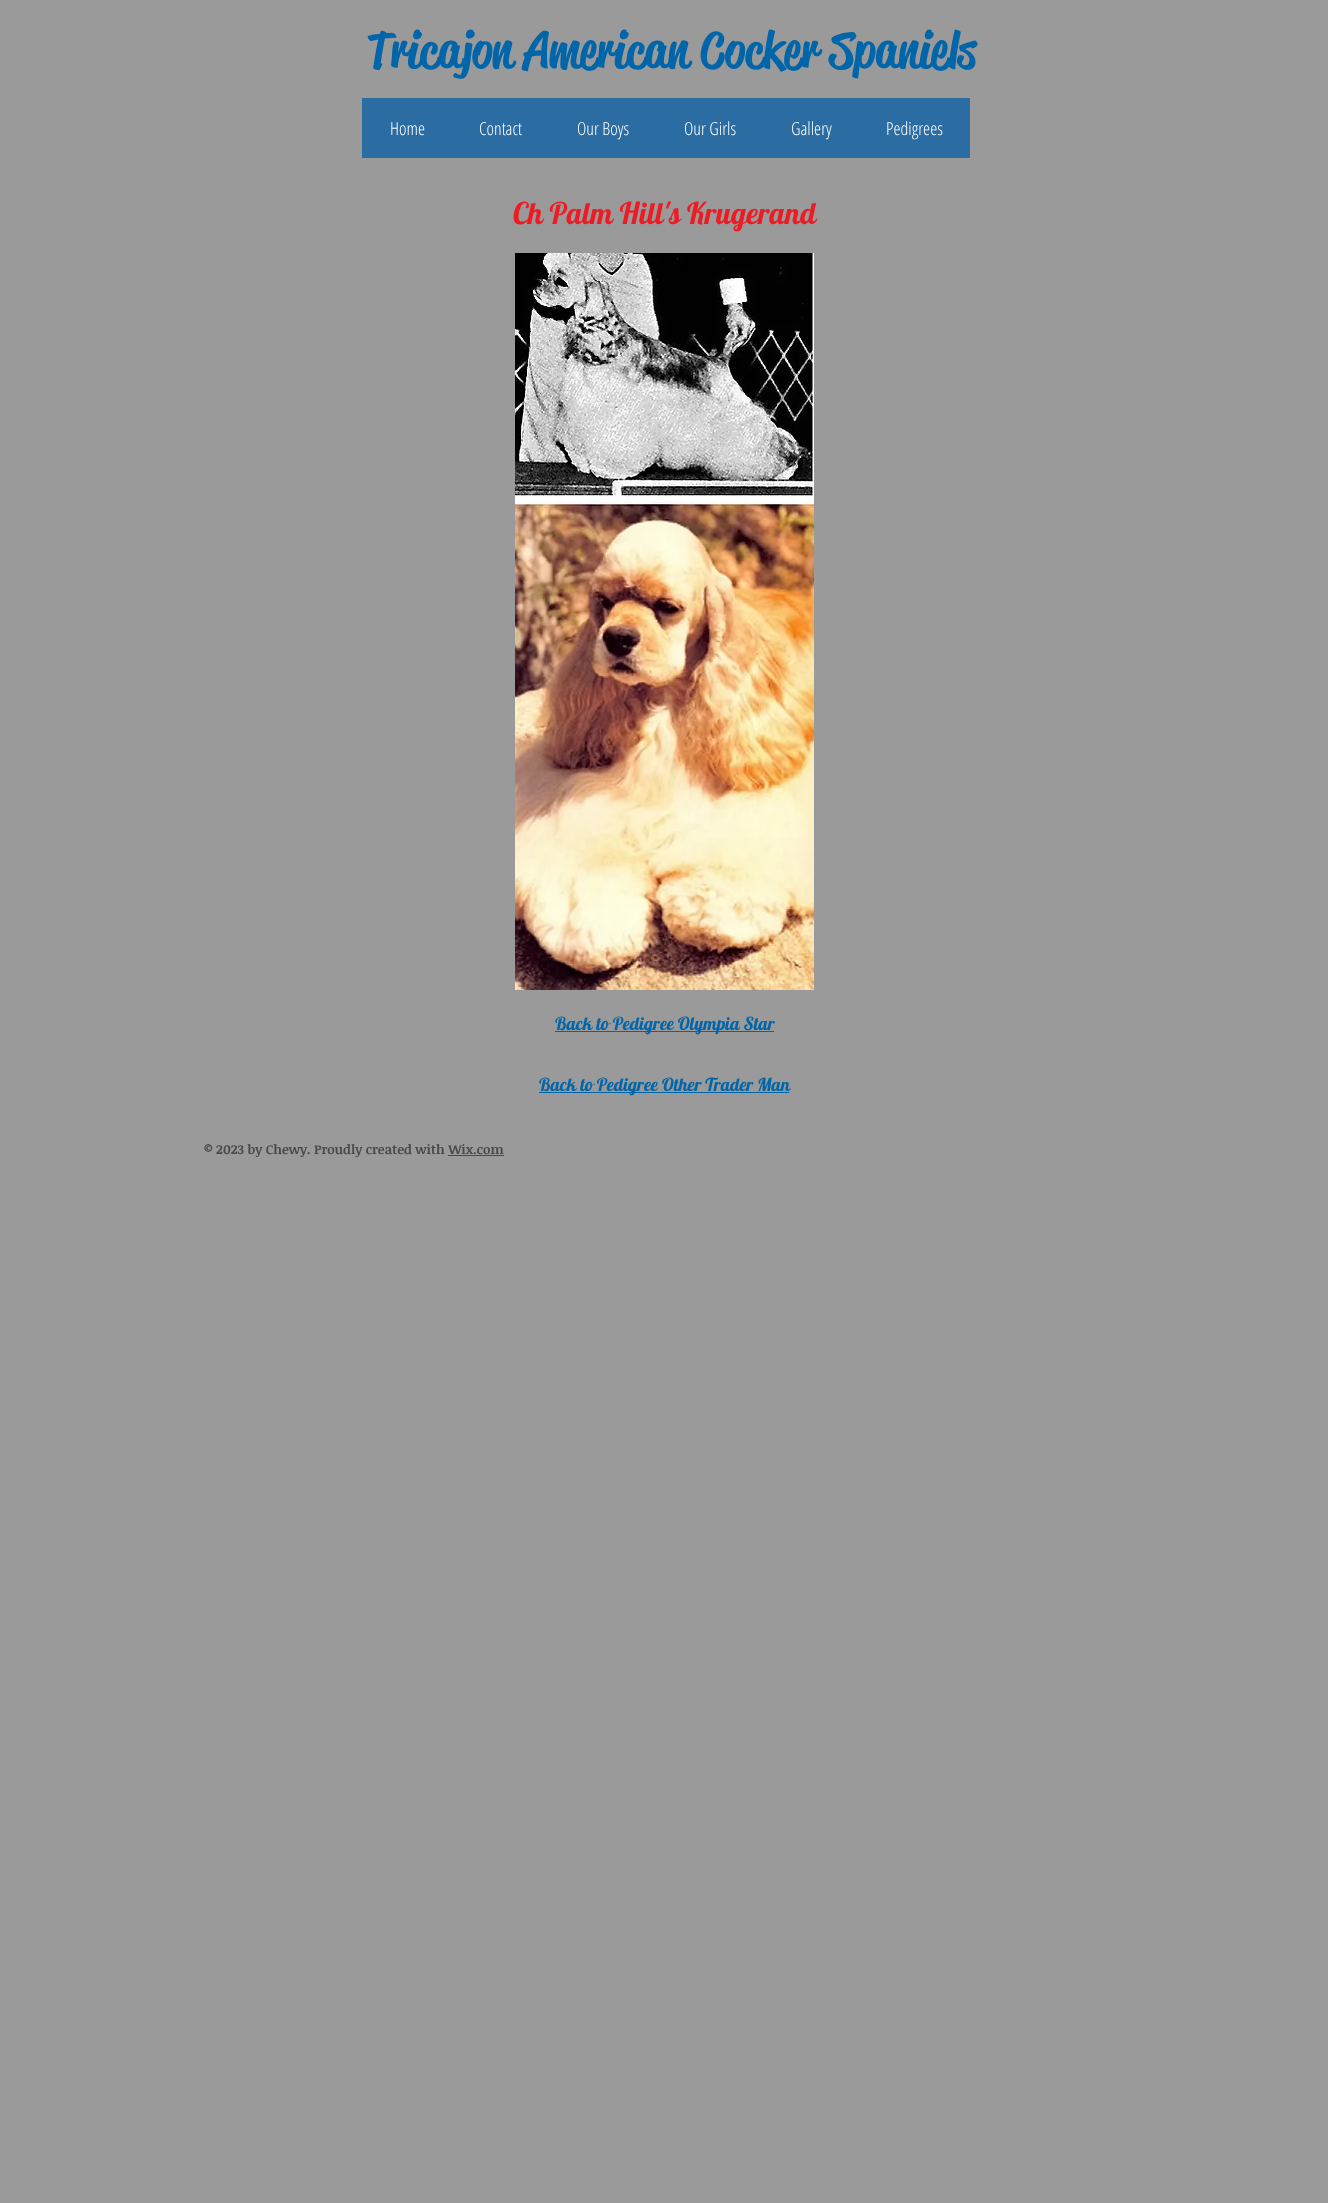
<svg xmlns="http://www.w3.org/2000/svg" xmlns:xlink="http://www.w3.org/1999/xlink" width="1328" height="2203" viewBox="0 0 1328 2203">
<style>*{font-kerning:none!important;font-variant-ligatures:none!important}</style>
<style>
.cls-1{font:500 50px 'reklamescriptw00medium';fill:#0065a9}
.cls-2{font:300 18px Open Sans Condensed;fill:#ffffff}
.cls-3{font:30px Lobster;fill:#ed1c24}
.cls-4{font:18px Lobster;fill:#0065a9}
.cls-5{font:bold 13px Noticia Text;fill:#4a4a4a}
</style>
<rect width="100%" height="100%" fill="#9a9a9a"/>
<rect fill="#2b6ca3" x="362" y="98" width="608" height="60"/>
<image xlink:href="image0.png" x="515" y="253" width="299" height="737"/>
<rect fill="#0065a9" x="555" y="1031" width="219" height="1"/>
<rect fill="#0065a9" x="539" y="1092" width="250" height="1"/>
<rect fill="#4a4a4a" x="448" y="1155" width="56" height="1"/>
<text class="cls-1" x="367" y="67">Tricajon American Cocker Spaniels</text>
<text class="cls-2" x="390" y="135">Home</text>
<text class="cls-2" x="479" y="135">Contact</text>
<text class="cls-2" x="577" y="135">Our Boys</text>
<text class="cls-2" x="684" y="135">Our Girls</text>
<text class="cls-2" x="791" y="135">Gallery</text>
<text class="cls-2" x="886" y="135">Pedigrees</text>
<text class="cls-3" x="513" y="224">Ch Palm Hill's</text>
<text class="cls-3" x="687" y="224">Krugerand</text>
<text class="cls-4" x="555" y="1030">Back to Pedigree Olympia Star</text>
<text class="cls-4" x="539" y="1091">Back to Pedigree Other Trader Man</text>
<text class="cls-5" x="204" y="1154">© 2023 by Chewy. Proudly created with Wix.com</text>
</svg>
